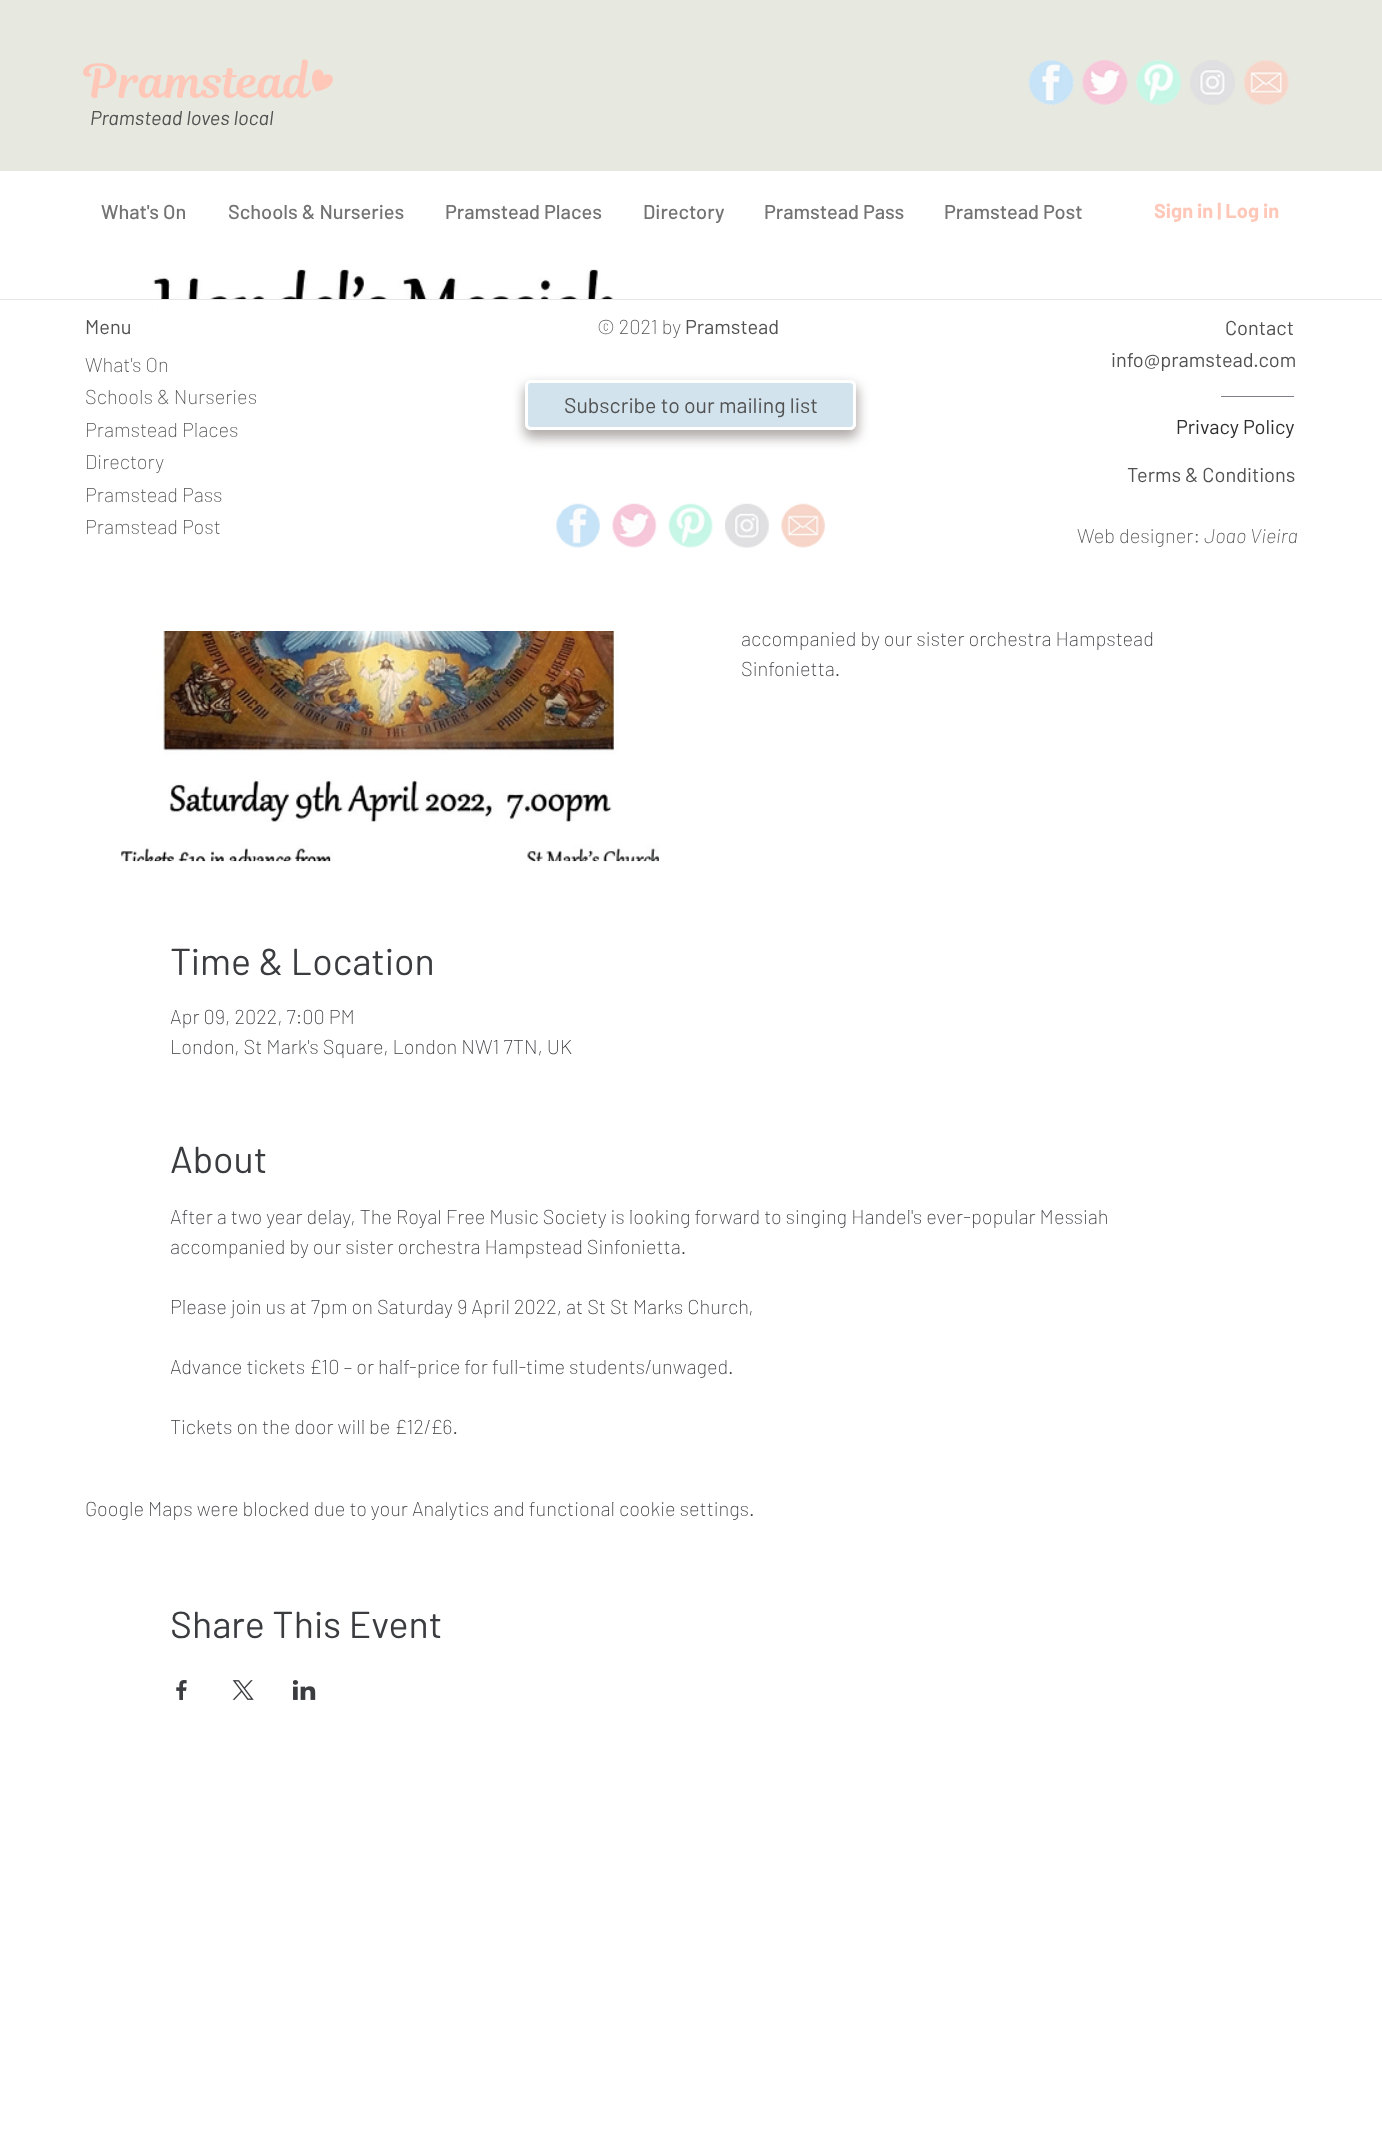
<svg xmlns="http://www.w3.org/2000/svg" xmlns:xlink="http://www.w3.org/1999/xlink" width="1382" height="2150" viewBox="0 0 1382 2150">
<style>
.cls-1{font:46.25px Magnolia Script;fill:#ffc7b8}
.cls-2{font:italic 20px Barlow;fill:#525252}
.cls-3{font:500 20px Barlow;fill:#737373}
.cls-4{font:bold 20px Barlow;fill:#ffc7b8}
.cls-5{font:20px 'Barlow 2';fill:#525252}
.cls-6{font:200 20px Barlow;fill:#525252}
.cls-7{font:21.25px 'Barlow 2';fill:#525252}
.cls-8{font:20px 'Barlow 2';fill:#2f2e2e}
.cls-9{font:italic 200 20px Barlow;fill:#525252}
.cls-10{font:200 20px Barlow;fill:#3b3c40}
.cls-11{font:37.5px Barlow;fill:#3b3c40}
</style>
<defs>
<clipPath id="clip1"><path d="M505 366H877V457H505ZM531 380H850C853.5 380 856 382.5 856 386V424C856 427.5 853.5 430 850 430H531C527.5 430 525 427.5 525 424V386C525 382.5 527.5 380 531 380Z" clip-rule="evenodd"/></clipPath>
</defs>
<rect width="100%" height="100%" fill="#ffffff"/>
<rect fill="#e7e8df" x="0" y="0" width="1382" height="171"/>
<image xlink:href="image0.png" x="312" y="69" width="21" height="23"/>
<image xlink:href="image1.png" x="1028" y="60" width="46" height="45"/>
<image xlink:href="image2.png" x="1082" y="60" width="46" height="45"/>
<image xlink:href="image3.png" x="1136" y="60" width="46" height="45"/>
<image xlink:href="image4.png" x="1190" y="60" width="45" height="45"/>
<image xlink:href="image5.png" x="1243" y="60" width="46" height="45"/>
<image xlink:href="image11.png" x="121" y="269" width="539" height="593"/>
<rect fill="#ffffff" x="158" y="300" width="466" height="331"/>
<rect fill="#e8e6e6" x="0" y="299" width="1382" height="1"/>
<rect fill="#7f808a" x="1221" y="396" width="73" height="1"/>
<g clip-path="url(#clip1)">
<rect fill="#7b736f" fill-opacity="0.6" filter="blur(6px)" x="524" y="385" width="334" height="53" rx="8"/>
</g>
<rect fill="#a5c8de" fill-opacity="0.5" stroke="#ffffff" stroke-width="3" x="526.5" y="381.5" width="328" height="47" rx="4.5"/>
<image xlink:href="image6.png" x="556" y="503" width="44" height="45"/>
<image xlink:href="image7.png" x="612" y="503" width="45" height="45"/>
<image xlink:href="image8.png" x="668" y="503" width="45" height="45"/>
<image xlink:href="image9.png" x="725" y="503" width="44" height="45"/>
<image xlink:href="image10.png" x="781" y="503" width="44" height="45"/>
<image xlink:href="image12.png" x="176" y="1680" width="11" height="20"/>
<image xlink:href="image13.png" x="232" y="1680" width="22" height="20"/>
<image xlink:href="image14.png" x="293" y="1680" width="23" height="20"/>
<text class="cls-1" x="84" y="98">Pramstead</text>
<text class="cls-2" x="90" y="125">Pramstead loves local</text>
<text class="cls-3" x="101" y="219">What's On</text>
<text class="cls-3" x="228" y="219">Schools &amp; Nurseries</text>
<text class="cls-3" x="445" y="219">Pramstead Places</text>
<text class="cls-3" x="643" y="219">Directory</text>
<text class="cls-3" x="764" y="219">Pramstead Pass</text>
<text class="cls-3" x="944" y="219">Pramstead Post</text>
<text class="cls-4" x="1154" y="218">Sign in | Log in</text>
<text class="cls-5" x="85" y="334">Menu</text>
<text class="cls-6" x="597" y="334">© 2021 by</text>
<text class="cls-5" x="685" y="334">Pramstead</text>
<text class="cls-5" x="1225" y="335">Contact</text>
<text class="cls-6"><tspan x="85" y="372">What's On</tspan><tspan x="85" y="404">Schools &amp; Nurseries</tspan><tspan x="85" y="437">Pramstead Places</tspan><tspan x="85" y="469">Directory</tspan><tspan x="85" y="502">Pramstead Pass</tspan><tspan x="85" y="534">Pramstead Post</tspan></text>
<text class="cls-5" x="1111" y="367">info@pramstead.com</text>
<text class="cls-7" x="564" y="413">Subscribe to our mailing list</text>
<text class="cls-8" x="1176" y="434">Privacy Policy</text>
<text class="cls-5" x="1127" y="482">Terms &amp; Conditions</text>
<text class="cls-6" x="1077" y="543">Web designer:</text>
<text class="cls-9" x="1204" y="543">Joao Vieira</text>
<text class="cls-10"><tspan x="741" y="646">accompanied by our sister orchestra Hampstead</tspan><tspan x="741" y="676">Sinfonietta.</tspan></text>
<text class="cls-11" x="170" y="975">Time &amp; Location</text>
<text class="cls-10"><tspan x="170" y="1024">Apr 09, 2022, 7:00 PM</tspan><tspan x="170" y="1054">London, St Mark's Square, London NW1 7TN, UK</tspan></text>
<text class="cls-11" x="170" y="1173">About</text>
<text class="cls-10"><tspan x="170" y="1224">After a two year delay, The Royal Free Music Society is looking forward to singing Handel's ever-popular Messiah</tspan><tspan x="170" y="1254">accompanied by our sister orchestra Hampstead Sinfonietta.</tspan></text>
<text class="cls-10" x="170" y="1314">Please join us at 7pm on Saturday 9 April 2022, at St St Marks Church,</text>
<text class="cls-10" x="170" y="1374">Advance tickets £10 – or half-price for full-time students/unwaged.</text>
<text class="cls-10" x="170" y="1434">Tickets on the door will be £12/£6.</text>
<text class="cls-10" x="85" y="1516">Google Maps were blocked due to your Analytics and functional cookie settings.</text>
<text class="cls-11" x="170" y="1638">Share This Event</text>
</svg>
